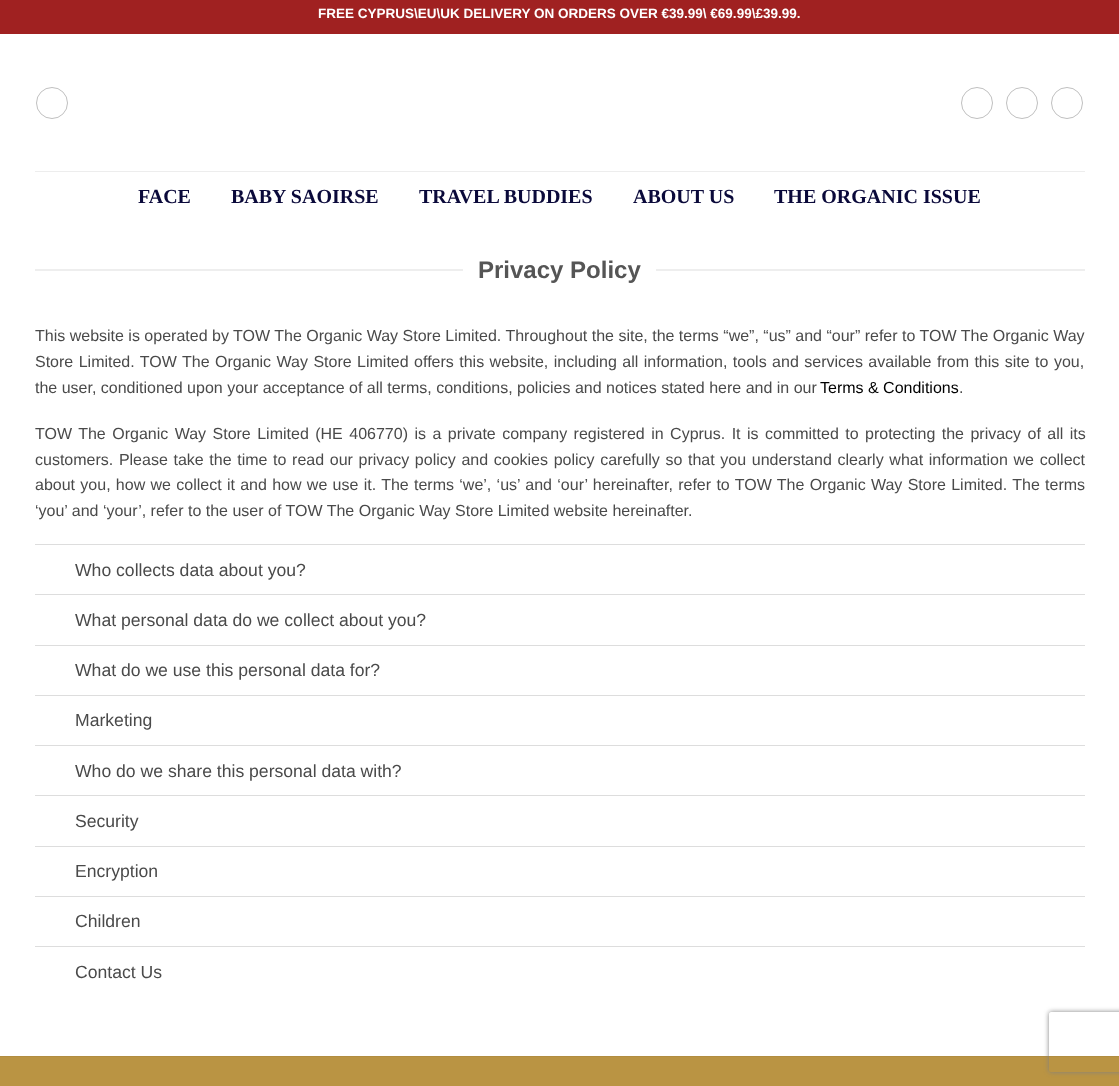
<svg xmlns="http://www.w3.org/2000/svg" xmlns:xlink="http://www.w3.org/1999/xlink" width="1119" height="1086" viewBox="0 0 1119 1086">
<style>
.cls-1{font:bold 13.5px Liberation Sans;fill:#ffffff}
.cls-2{font:bold 20px Liberation Serif;fill:#0a093a}
.cls-3{font:bold 24px Liberation Sans;fill:#555555}
.cls-4{font:16px Liberation Sans;fill:#4a4a4a}
.cls-5{font:16px Liberation Sans;fill:#000000}
.cls-6{font:17.6px Liberation Sans;fill:#4a4a4a}
</style>
<defs>
<clipPath id="clip1"><path d="M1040 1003H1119V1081H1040ZM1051 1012H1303C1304 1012 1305 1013 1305 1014V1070C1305 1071 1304 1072 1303 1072H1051C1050 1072 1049 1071 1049 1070V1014C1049 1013 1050 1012 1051 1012Z" clip-rule="evenodd"/></clipPath>
</defs>
<rect width="100%" height="100%" fill="#ffffff"/>
<rect fill="#a02121" x="0" y="0" width="1119" height="34"/>
<circle fill="none" stroke="#c0c0c0" cx="52" cy="103" r="15.5"/>
<circle fill="none" stroke="#c0c0c0" cx="977" cy="103" r="15.5"/>
<circle fill="none" stroke="#c0c0c0" cx="1022" cy="103" r="15.5"/>
<circle fill="none" stroke="#c0c0c0" cx="1067" cy="103" r="15.5"/>
<rect fill="#ededed" x="35" y="171" width="1050" height="1"/>
<rect fill="#eeeeee" x="35" y="269" width="428" height="2"/>
<rect fill="#eeeeee" x="656" y="269" width="429" height="2"/>
<rect fill="#dddddd" x="35" y="544" width="1050" height="1"/>
<rect fill="#dddddd" x="35" y="594" width="1050" height="1"/>
<rect fill="#dddddd" x="35" y="645" width="1050" height="1"/>
<rect fill="#dddddd" x="35" y="695" width="1050" height="1"/>
<rect fill="#dddddd" x="35" y="745" width="1050" height="1"/>
<rect fill="#dddddd" x="35" y="795" width="1050" height="1"/>
<rect fill="#dddddd" x="35" y="846" width="1050" height="1"/>
<rect fill="#dddddd" x="35" y="896" width="1050" height="1"/>
<rect fill="#dddddd" x="35" y="946" width="1050" height="1"/>
<rect fill="#ba9443" x="0" y="1057" width="1119" height="29"/>
<rect fill="#b18d40" x="0" y="1056" width="1119" height="1"/>
<g clip-path="url(#clip1)">
<rect fill="#808080" filter="blur(2.5px)" x="1049" y="1012" width="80" height="60" rx="2"/>
</g>
<text class="cls-1" x="318" y="18">FREE CYPRUS\EU\UK DELIVERY ON ORDERS OVER €39.99\ €69.99\£39.99.</text>
<text class="cls-2" x="138" y="203">FACE</text>
<text class="cls-2" x="231" y="203">BABY SAOIRSE</text>
<text class="cls-2" x="419" y="203">TRAVEL BUDDIES</text>
<text class="cls-2" x="633" y="203">ABOUT US</text>
<text class="cls-2" x="774" y="203">THE ORGANIC ISSUE</text>
<text class="cls-3" x="478" y="278">Privacy Policy</text>
<text class="cls-4"><tspan x="35" y="341">This website is operated by TOW The Organic Way Store Limited. Throughout the site, the terms “we”, “us” and “our” refer to TOW The Organic Way</tspan><tspan x="35" y="367" word-spacing="1">Store Limited. TOW The Organic Way Store Limited offers this website, including all information, tools and services available from this site to you,</tspan><tspan x="35" y="393">the user, conditioned upon your acceptance of all terms, conditions, policies and notices stated here and in our</tspan></text>
<text class="cls-5" x="820" y="393">Terms &amp; Conditions</text>
<text class="cls-4" x="959" y="393">.</text>
<text class="cls-4"><tspan x="35" y="439" word-spacing="2">TOW The Organic Way Store Limited (HE 406770) is a private company registered in Cyprus. It is committed to protecting the privacy of all its</tspan><tspan x="35" y="465" word-spacing="1.2">customers. Please take the time to read our privacy policy and cookies policy carefully so that you understand clearly what information we collect</tspan><tspan x="35" y="490" word-spacing="0.85">about you, how we collect it and how we use it. The terms ‘we’, ‘us’ and ‘our’ hereinafter, refer to TOW The Organic Way Store Limited. The terms</tspan><tspan x="35" y="516">‘you’ and ‘your’, refer to the user of TOW The Organic Way Store Limited website hereinafter.</tspan></text>
<text class="cls-6" x="75" y="576">Who collects data about you?</text>
<text class="cls-6" x="75" y="626">What personal data do we collect about you?</text>
<text class="cls-6" x="75" y="676">What do we use this personal data for?</text>
<text class="cls-6" x="75" y="726">Marketing</text>
<text class="cls-6" x="75" y="777">Who do we share this personal data with?</text>
<text class="cls-6" x="75" y="827">Security</text>
<text class="cls-6" x="75" y="877">Encryption</text>
<text class="cls-6" x="75" y="927">Children</text>
<text class="cls-6" x="75" y="978">Contact Us</text>
</svg>
